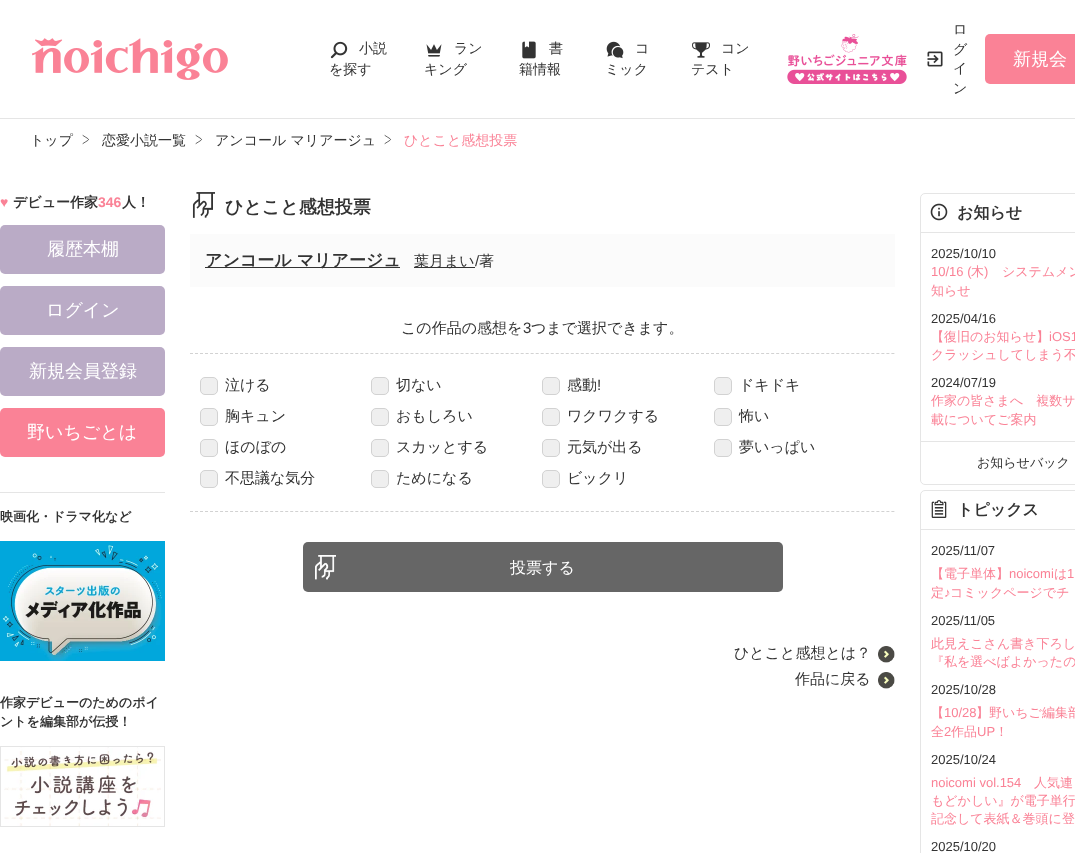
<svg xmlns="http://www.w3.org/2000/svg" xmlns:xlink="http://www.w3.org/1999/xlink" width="1075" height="853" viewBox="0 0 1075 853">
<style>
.cls-1{font:500 14px WenQuanYi Zen Hei;fill:#333333}
.cls-2{font:500 18px WenQuanYi Zen Hei;fill:#ffffff}
.cls-3{font:500 14px WenQuanYi Zen Hei;fill:#fa8296}
.cls-4{font:bold 14px Liberation Sans;fill:#fa8296}
.cls-5{font:bold 14px WenQuanYi Zen Hei;fill:#333333}
.cls-6{font:bold 13px WenQuanYi Zen Hei;fill:#333333}
.cls-7{font:bold 18px WenQuanYi Zen Hei;fill:#333333}
.cls-8{font:bold 17px WenQuanYi Zen Hei;fill:#333333}
.cls-9{font:500 15px WenQuanYi Zen Hei;fill:#333333}
.cls-10{font:15px Liberation Sans;fill:#333333}
.cls-11{font:500 16px WenQuanYi Zen Hei;fill:#ffffff}
.cls-12{font:bold 16px WenQuanYi Zen Hei;fill:#333333}
.cls-13{font:13px Liberation Sans;fill:#333333}
.cls-14{font:13px Liberation Sans;fill:#fa8296}
.cls-15{font:500 13px WenQuanYi Zen Hei;fill:#fa8296}
.cls-16{font:500 13px WenQuanYi Zen Hei;fill:#333333}
</style>
<rect width="100%" height="100%" fill="#ffffff"/>
<rect fill="#e5e5e5" x="0" y="118" width="1075" height="1"/>
<image xlink:href="image0.png" x="32" y="38" width="196" height="42"/>
<image xlink:href="image1.png" x="330" y="41" width="18" height="18"/>
<image xlink:href="image2.png" x="426" y="44" width="16" height="13"/>
<image xlink:href="image3.png" x="522" y="41" width="14" height="18"/>
<image xlink:href="image4.png" x="606" y="41" width="18" height="18"/>
<image xlink:href="image5.png" x="692" y="42" width="18" height="16"/>
<image xlink:href="image6.png" x="787" y="34" width="120" height="50"/>
<image xlink:href="image7.png" x="927" y="51" width="16" height="16"/>
<rect fill="#fa8296" x="985" y="34" width="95" height="50" rx="5"/>
<path fill="none" stroke="#000000" stroke-width="0.6" stroke-linecap="round" stroke-linejoin="round" d="M83 143.5C90.5 138.5 90.5 140.5 83 135.5"/>
<path fill="none" stroke="#000000" stroke-width="0.6" stroke-linecap="round" stroke-linejoin="round" d="M196 143.5C203.5 138.5 203.5 140.5 196 135.5"/>
<path fill="none" stroke="#000000" stroke-width="0.6" stroke-linecap="round" stroke-linejoin="round" d="M385 143.5C392.5 138.5 392.5 140.5 385 135.5"/>
<rect fill="#baabc6" x="0" y="225" width="165" height="49" rx="5"/>
<rect fill="#baabc6" x="0" y="286" width="165" height="49" rx="5"/>
<rect fill="#baabc6" x="0" y="347" width="165" height="49" rx="5"/>
<rect fill="#fa8296" x="0" y="408" width="165" height="49" rx="5"/>
<rect fill="#e5e5e5" x="0" y="492" width="165" height="1"/>
<image xlink:href="image8.png" x="0" y="541" width="165" height="120"/>
<rect fill="none" stroke="#e5e5e5" x="0.5" y="746.5" width="164" height="80"/>
<image xlink:href="image9.png" x="4" y="747" width="157" height="79"/>
<image xlink:href="image10.png" x="192" y="192" width="23" height="26"/>
<rect fill="#fbfbfb" x="190" y="234" width="705" height="53"/>
<rect fill="#333333" x="205" y="267" width="195" height="1"/>
<rect fill="#333333" x="414" y="267" width="61" height="1"/>
<path fill="none" stroke="#d2d2d2" stroke-dasharray="3 2.01" d="M190 353.5H895"/>
<path fill="none" stroke="#d2d2d2" stroke-dasharray="3 2.01" d="M190 511.5H895"/>
<rect fill="#efefef" stroke="#d2d2d2" x="200.5" y="377.5" width="17" height="17" rx="4.5"/>
<rect fill="#efefef" stroke="#d2d2d2" x="371.5" y="377.5" width="17" height="17" rx="4.5"/>
<rect fill="#efefef" stroke="#d2d2d2" x="542.5" y="377.5" width="17" height="17" rx="4.5"/>
<rect fill="#efefef" stroke="#d2d2d2" x="714.5" y="377.5" width="17" height="17" rx="4.5"/>
<rect fill="#efefef" stroke="#d2d2d2" x="200.5" y="408.5" width="17" height="17" rx="4.5"/>
<rect fill="#efefef" stroke="#d2d2d2" x="371.5" y="408.5" width="17" height="17" rx="4.5"/>
<rect fill="#efefef" stroke="#d2d2d2" x="542.5" y="408.5" width="17" height="17" rx="4.5"/>
<rect fill="#efefef" stroke="#d2d2d2" x="714.5" y="408.5" width="17" height="17" rx="4.5"/>
<rect fill="#efefef" stroke="#d2d2d2" x="200.5" y="439.5" width="17" height="17" rx="4.5"/>
<rect fill="#efefef" stroke="#d2d2d2" x="371.5" y="439.5" width="17" height="17" rx="4.5"/>
<rect fill="#efefef" stroke="#d2d2d2" x="542.5" y="439.5" width="17" height="17" rx="4.5"/>
<rect fill="#efefef" stroke="#d2d2d2" x="714.5" y="439.5" width="17" height="17" rx="4.5"/>
<rect fill="#efefef" stroke="#d2d2d2" x="200.5" y="470.5" width="17" height="17" rx="4.5"/>
<rect fill="#efefef" stroke="#d2d2d2" x="371.5" y="470.5" width="17" height="17" rx="4.5"/>
<rect fill="#efefef" stroke="#d2d2d2" x="542.5" y="470.5" width="17" height="17" rx="4.5"/>
<rect fill="#666666" x="303" y="542" width="480" height="50" rx="5"/>
<image xlink:href="image11.png" x="315" y="555" width="21" height="25"/>
<image xlink:href="image12.png" x="878" y="646" width="17" height="17"/>
<image xlink:href="image12.png" x="878" y="672" width="17" height="17"/>
<rect fill="none" stroke="#e5e5e5" x="920.5" y="193.5" width="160" height="291" rx="4.5"/>
<rect fill="#e5e5e5" x="921" y="232" width="154" height="1"/>
<image xlink:href="image13.png" x="930" y="203" width="18" height="18"/>
<rect fill="#e5e5e5" x="921" y="441" width="154" height="1"/>
<rect fill="none" stroke="#e5e5e5" x="920.5" y="490.5" width="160" height="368" rx="4.5"/>
<rect fill="#e5e5e5" x="921" y="529" width="154" height="1"/>
<image xlink:href="image14.png" x="931" y="500" width="16" height="18"/>
<text class="cls-1" x="359" y="53">小説</text>
<text class="cls-1" x="329" y="74">を探す</text>
<text class="cls-1" x="454" y="53">ラン</text>
<text class="cls-1" x="424" y="74">キング</text>
<text class="cls-1" x="549" y="53">書</text>
<text class="cls-1" x="519" y="74">籍情報</text>
<text class="cls-1" x="635" y="53">コ</text>
<text class="cls-1" x="605" y="74">ミック</text>
<text class="cls-1" x="721" y="53">コン</text>
<text class="cls-1" x="691" y="74">テスト</text>
<text class="cls-1"><tspan x="953" y="34">ロ</tspan><tspan x="953" y="54">グ</tspan><tspan x="953" y="73">イ</tspan><tspan x="953" y="93">ン</tspan></text>
<text class="cls-2" x="1013" y="65">新規会</text>
<text class="cls-1" x="30" y="145">トップ</text>
<text class="cls-1" x="102" y="145">恋愛小説一覧</text>
<text class="cls-1" x="215" y="145">アンコール マリアージュ</text>
<text class="cls-3" x="404" y="145">ひとこと感想投票</text>
<text class="cls-4" x="0" y="207">♥</text>
<text class="cls-5" x="13" y="207">デビュー作家</text>
<text class="cls-4" x="98" y="207">346</text>
<text class="cls-5" x="122" y="207">人！</text>
<text class="cls-2" x="47" y="255">履歴本棚</text>
<text class="cls-2" x="46" y="316">ログイン</text>
<text class="cls-2" x="29" y="377">新規会員登録</text>
<text class="cls-2" x="27" y="438">野いちごとは</text>
<text class="cls-6" x="0" y="521">映画化・ドラマ化など</text>
<text class="cls-6"><tspan x="0" y="707">作家デビューのためのポイ</tspan><tspan x="0" y="726">ントを編集部が伝授！</tspan></text>
<text class="cls-7" x="225" y="213">ひとこと感想投票</text>
<text class="cls-8" x="205" y="266">アンコール マリアージュ</text>
<text class="cls-9" x="414" y="266">葉月まい</text>
<text class="cls-10" x="475" y="266">/</text>
<text class="cls-9" x="479" y="266">著</text>
<text class="cls-9" x="401" y="333">この作品の感想を</text>
<text class="cls-10" x="523" y="333">3</text>
<text class="cls-9" x="531" y="333">つまで選択できます。</text>
<text class="cls-9" x="225" y="390">泣ける</text>
<text class="cls-9" x="396" y="390">切ない</text>
<text class="cls-9" x="567" y="390">感動</text>
<text class="cls-10" x="597" y="390">!</text>
<text class="cls-9" x="739" y="390">ドキドキ</text>
<text class="cls-9" x="225" y="421">胸キュン</text>
<text class="cls-9" x="396" y="421">おもしろい</text>
<text class="cls-9" x="567" y="421">ワクワクする</text>
<text class="cls-9" x="739" y="421">怖い</text>
<text class="cls-9" x="225" y="452">ほのぼの</text>
<text class="cls-9" x="396" y="452">スカッとする</text>
<text class="cls-9" x="567" y="452">元気が出る</text>
<text class="cls-9" x="739" y="452">夢いっぱい</text>
<text class="cls-9" x="225" y="483">不思議な気分</text>
<text class="cls-9" x="396" y="483">ためになる</text>
<text class="cls-9" x="567" y="483">ビックリ</text>
<text class="cls-11" x="510" y="573">投票する</text>
<text class="cls-9" x="734" y="658">ひとこと感想とは？</text>
<text class="cls-9" x="795" y="684">作品に戻る</text>
<text class="cls-12" x="957" y="218">お知らせ</text>
<text class="cls-13" x="931" y="258">2025/10/10</text>
<text class="cls-14" x="931" y="276">10/16 (</text>
<text class="cls-15" x="971" y="276">木</text>
<text class="cls-14" x="984" y="276">)</text>
<text class="cls-15" x="1002" y="276">システムメン</text>
<text class="cls-15" x="931" y="295">知らせ</text>
<text class="cls-13" x="931" y="323">2025/04/16</text>
<text class="cls-15" x="931" y="341">【復旧のお知らせ】</text>
<text class="cls-14" x="1049" y="341">iOS1</text>
<text class="cls-15" x="931" y="359">クラッシュしてしまう不</text>
<text class="cls-13" x="931" y="387">2024/07/19</text>
<text class="cls-15"><tspan x="931" y="405">作家の皆さまへ　複数サ</tspan><tspan x="931" y="424">載についてご案内</tspan></text>
<text class="cls-16" x="977" y="467">お知らせバック</text>
<text class="cls-12" x="957" y="515">トピックス</text>
<text class="cls-13" x="931" y="555">2025/11/07</text>
<text class="cls-15" x="931" y="578">【電子単体】</text>
<text class="cls-14" x="1009" y="578">noicomi</text>
<text class="cls-15" x="1054" y="578">は</text>
<text class="cls-14" x="1067" y="578">1</text>
<text class="cls-15" x="931" y="597">定</text>
<text class="cls-14" x="944" y="597">♪</text>
<text class="cls-15" x="950" y="597">コミックページでチ</text>
<text class="cls-13" x="931" y="625">2025/11/05</text>
<text class="cls-15"><tspan x="931" y="648">此見えこさん書き下ろし</tspan><tspan x="931" y="666">『私を選べばよかったの</tspan></text>
<text class="cls-13" x="931" y="694">2025/10/28</text>
<text class="cls-15" x="931" y="717">【</text>
<text class="cls-14" x="944" y="717">10/28</text>
<text class="cls-15" x="976" y="717">】野いちご編集部</text>
<text class="cls-15" x="931" y="736">全</text>
<text class="cls-14" x="944" y="736">2</text>
<text class="cls-15" x="951" y="736">作品</text>
<text class="cls-14" x="977" y="736">UP</text>
<text class="cls-15" x="995" y="736">！</text>
<text class="cls-13" x="931" y="764">2025/10/24</text>
<text class="cls-14" x="931" y="787">noicomi vol.154</text>
<text class="cls-15" x="1034" y="787">人気連</text>
<text class="cls-15"><tspan x="931" y="805">もどかしい』が電子単行</tspan><tspan x="931" y="823">記念して表紙＆巻頭に登</tspan></text>
<text class="cls-13" x="931" y="851">2025/10/20</text>
</svg>
